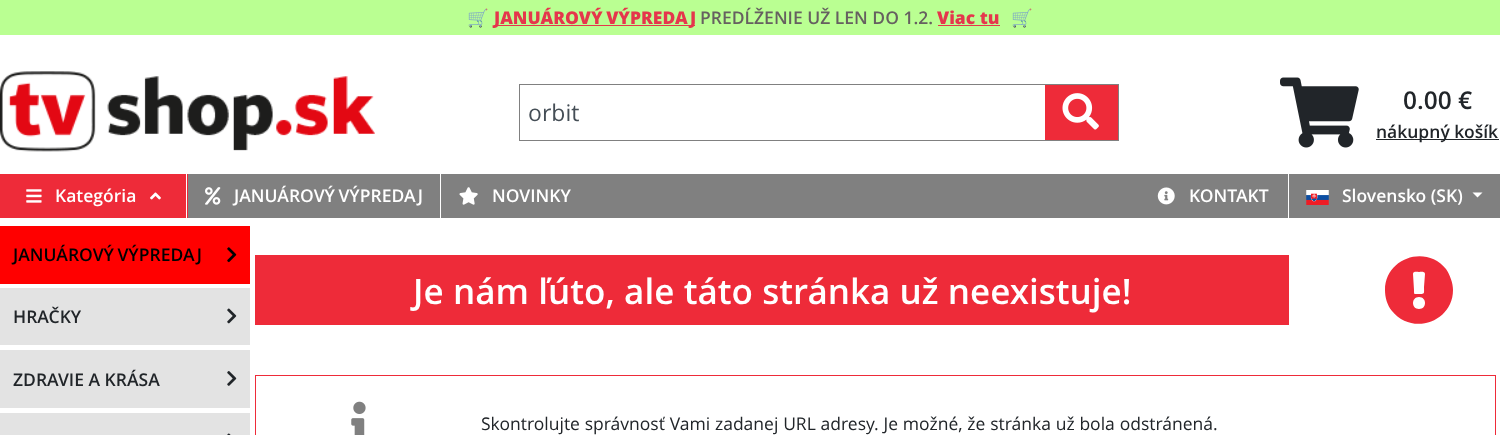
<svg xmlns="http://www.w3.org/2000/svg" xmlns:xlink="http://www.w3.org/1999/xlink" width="1500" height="435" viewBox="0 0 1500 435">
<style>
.cls-1{font:bold 17.5px Noto Color Emoji;fill:#ffffff}
.cls-2{font:800 17.5px Open Sans;fill:#e5364c}
.cls-3{font:600 17.5px Open Sans;fill:#666060}
.cls-4{font:23px Open Sans;fill:#454e56}
.cls-5{font:600 24.5px Open Sans;fill:#212529}
.cls-6{font:600 17.5px Open Sans;fill:#212529}
.cls-7{font:600 17.5px Open Sans;fill:#ffffff}
.cls-8{font:600 17.5px Open Sans;fill:#000000}
.cls-9{font:600 35px Open Sans;fill:#ffffff}
.cls-10{font:17.5px Open Sans;fill:#212529}
</style>
<rect width="100%" height="100%" fill="#ffffff"/>
<rect fill="#baff92" x="0" y="0" width="1500" height="35"/>
<rect fill="#e5364c" x="494" y="25" width="201" height="1"/>
<rect fill="#e5364c" x="938" y="25" width="62" height="1"/>
<image xlink:href="image0.png" x="0" y="71" width="375" height="81"/>
<rect fill="#808080" x="519" y="84" width="600" height="1"/>
<rect fill="#808080" x="1118" y="84" width="1" height="57"/>
<rect fill="#808080" x="519" y="140" width="600" height="1"/>
<rect fill="#ee2b39" x="1045" y="85" width="73" height="55"/>
<image xlink:href="image1.png" x="1062" y="93" width="37" height="37"/>
<rect fill="#808080" x="519" y="84" width="1" height="57"/>
<image xlink:href="image2.png" x="1280" y="77" width="79" height="71"/>
<rect fill="#212529" x="1376" y="139" width="123" height="1"/>
<rect fill="#808080" x="188" y="174" width="1312" height="44"/>
<rect fill="#ee2b39" x="0" y="174" width="188" height="44"/>
<rect fill="#ffffff" x="186" y="174" width="1" height="44"/>
<image xlink:href="image3.png" x="26" y="189" width="16" height="14"/>
<image xlink:href="image4.png" x="150" y="192" width="11" height="8"/>
<rect fill="#ffffff" x="440" y="174" width="1" height="44"/>
<image xlink:href="image5.png" x="205" y="187" width="16" height="18"/>
<image xlink:href="image6.png" x="459" y="187" width="19" height="18"/>
<rect fill="#ffffff" x="1288" y="174" width="1" height="44"/>
<image xlink:href="image7.png" x="1157" y="187" width="18" height="18"/>
<image xlink:href="image8.png" x="1306" y="190" width="23" height="15"/>
<path fill="#ffffff" d="M1472.5 192.5H1482.5L1477.5 197.5Z"/>
<rect fill="#ff0000" x="0" y="226" width="250" height="58"/>
<image xlink:href="image9.png" x="227" y="247" width="10" height="16"/>
<rect fill="#e3e3e3" x="0" y="288" width="250" height="57"/>
<image xlink:href="image10.png" x="227" y="308" width="10" height="16"/>
<rect fill="#e3e3e3" x="0" y="350" width="250" height="58"/>
<image xlink:href="image11.png" x="227" y="371" width="10" height="15"/>
<rect fill="#e3e3e3" x="0" y="413" width="250" height="22"/>
<image xlink:href="image12.png" x="227" y="433" width="4" height="2"/>
<rect fill="#ee2b39" x="255" y="255" width="1034" height="70"/>
<path fill="#ee2b39" d="M1453 290C1453 322 1412 336 1392 311C1387 305 1385 297 1385 290C1385 258 1426 244 1446 269C1450 275 1453 283 1453 290ZM1419 297C1411 297 1411 309 1419 309C1427 309 1427 297 1419 297ZM1413 274L1414 290C1414 295 1414 294 1419 294C1425 294 1424 294 1424 287L1425 274C1425 271 1420 272 1419 272C1417 272 1413 271 1413 274Z"/>
<rect fill="none" stroke="#ee2b39" x="255.5" y="375.5" width="1240" height="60"/>
<image xlink:href="image13.png" x="351" y="401" width="15" height="34"/>
<text class="cls-1" x="467" y="24">🛒</text>
<text class="cls-2" x="494" y="24" word-spacing="-1">JANUÁROVÝ VÝPREDAJ</text>
<text class="cls-3" x="700" y="24">PREDĹŽENIE UŽ LEN DO 1.2.</text>
<text class="cls-2" x="937" y="24">Viac tu</text>
<text class="cls-1" x="1011" y="24">🛒</text>
<text class="cls-4" x="528" y="121">orbit</text>
<text class="cls-5" x="1403" y="109">0.00 €</text>
<text class="cls-6" x="1376" y="138">nákupný košík</text>
<text class="cls-7" x="55" y="202">Kategória</text>
<text class="cls-7" x="234" y="202" word-spacing="-1">JANUÁROVÝ VÝPREDAJ</text>
<text class="cls-7" x="492" y="202">NOVINKY</text>
<text class="cls-7" x="1189" y="202">KONTAKT</text>
<text class="cls-7" x="1342" y="202">Slovensko (SK)</text>
<text class="cls-8" x="13" y="261" word-spacing="-1">JANUÁROVÝ VÝPREDAJ</text>
<text class="cls-6" x="13" y="323">HRAČKY</text>
<text class="cls-6" x="13" y="386">ZDRAVIE A KRÁSA</text>
<text class="cls-9" x="413" y="304" word-spacing="0.25">Je nám ľúto, ale táto stránka už neexistuje!</text>
<text class="cls-10" x="481" y="430" word-spacing="0.25">Skontrolujte správnosť Vami zadanej URL adresy. Je možné, že stránka už bola odstránená.</text>
</svg>
